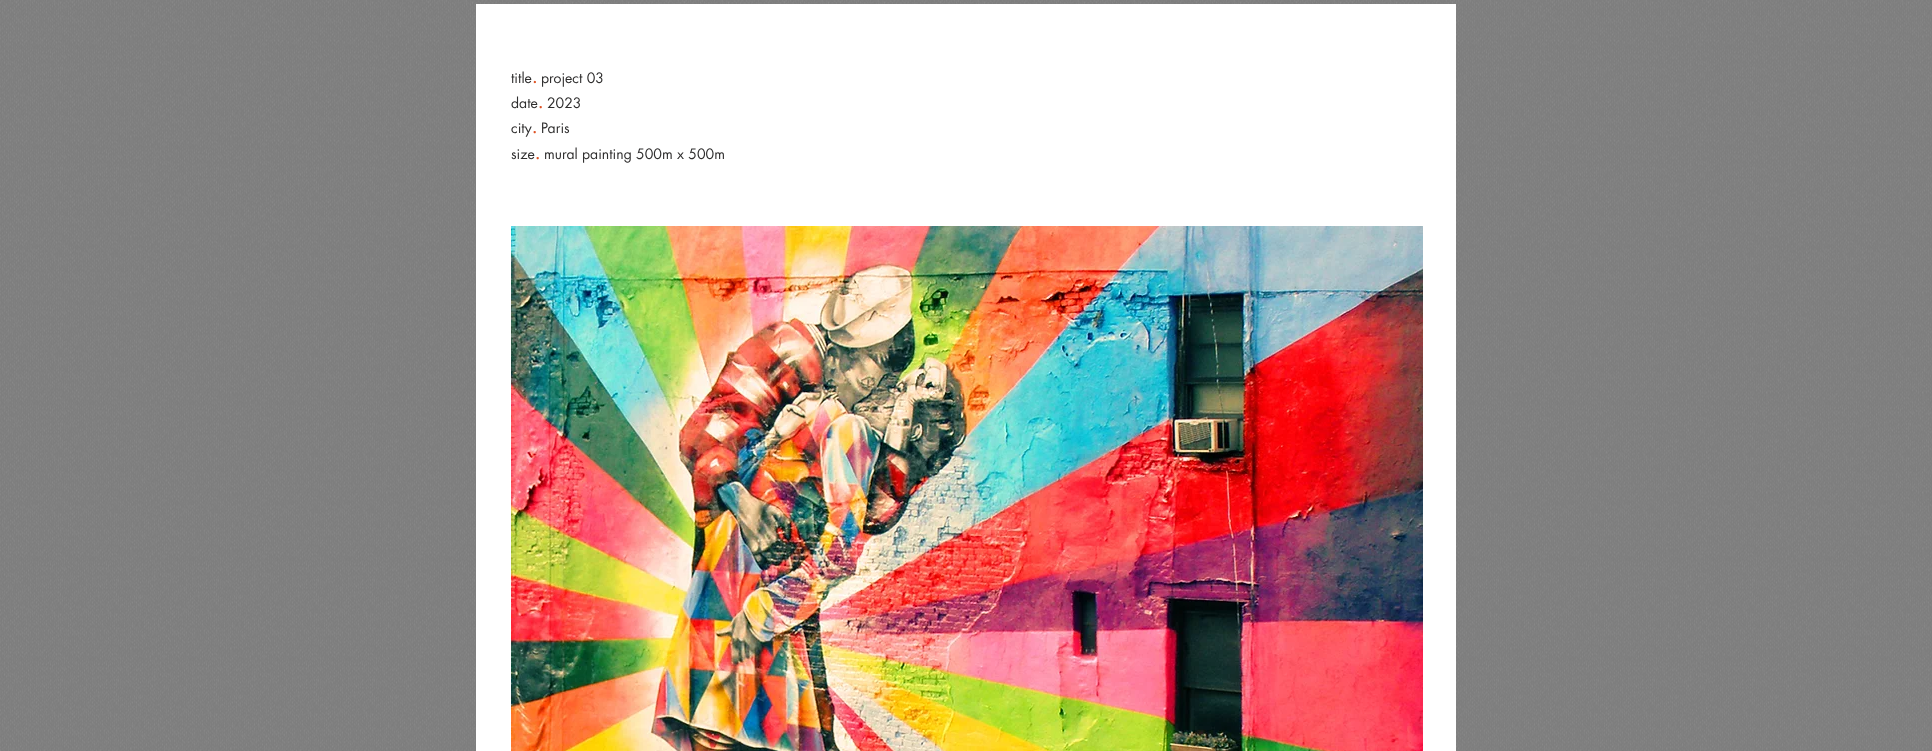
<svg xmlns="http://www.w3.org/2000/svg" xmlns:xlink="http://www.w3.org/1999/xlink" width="1932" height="751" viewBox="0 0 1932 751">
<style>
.cls-1{font:14px futura;fill:#2f2e2e}
.cls-2{font:bold 17px futura;fill:#de5021}
.cls-3{font:bold 16px futura;fill:#de5021}
</style>
<rect width="100%" height="100%" fill="#7e7e7e"/>
<image xlink:href="image0.png" x="0" y="0" width="1932" height="751"/>
<rect fill="#ffffff" x="476" y="4" width="980" height="747"/>
<image xlink:href="image1.png" x="511" y="226" width="912" height="525"/>
<text class="cls-1" x="511" y="83">title</text>
<text class="cls-2" x="532" y="83">.</text>
<text class="cls-1" x="541" y="83">project 03</text>
<text class="cls-1" x="511" y="108">date</text>
<text class="cls-3" x="538" y="108">.</text>
<text class="cls-1" x="547" y="108">2023</text>
<text class="cls-1" x="511" y="133">city</text>
<text class="cls-3" x="532" y="133">.</text>
<text class="cls-1" x="541" y="133">Paris</text>
<text class="cls-1" x="511" y="159">size</text>
<text class="cls-3" x="535" y="159">.</text>
<text class="cls-1" x="544" y="159">mural painting 500m x 500m</text>
</svg>
